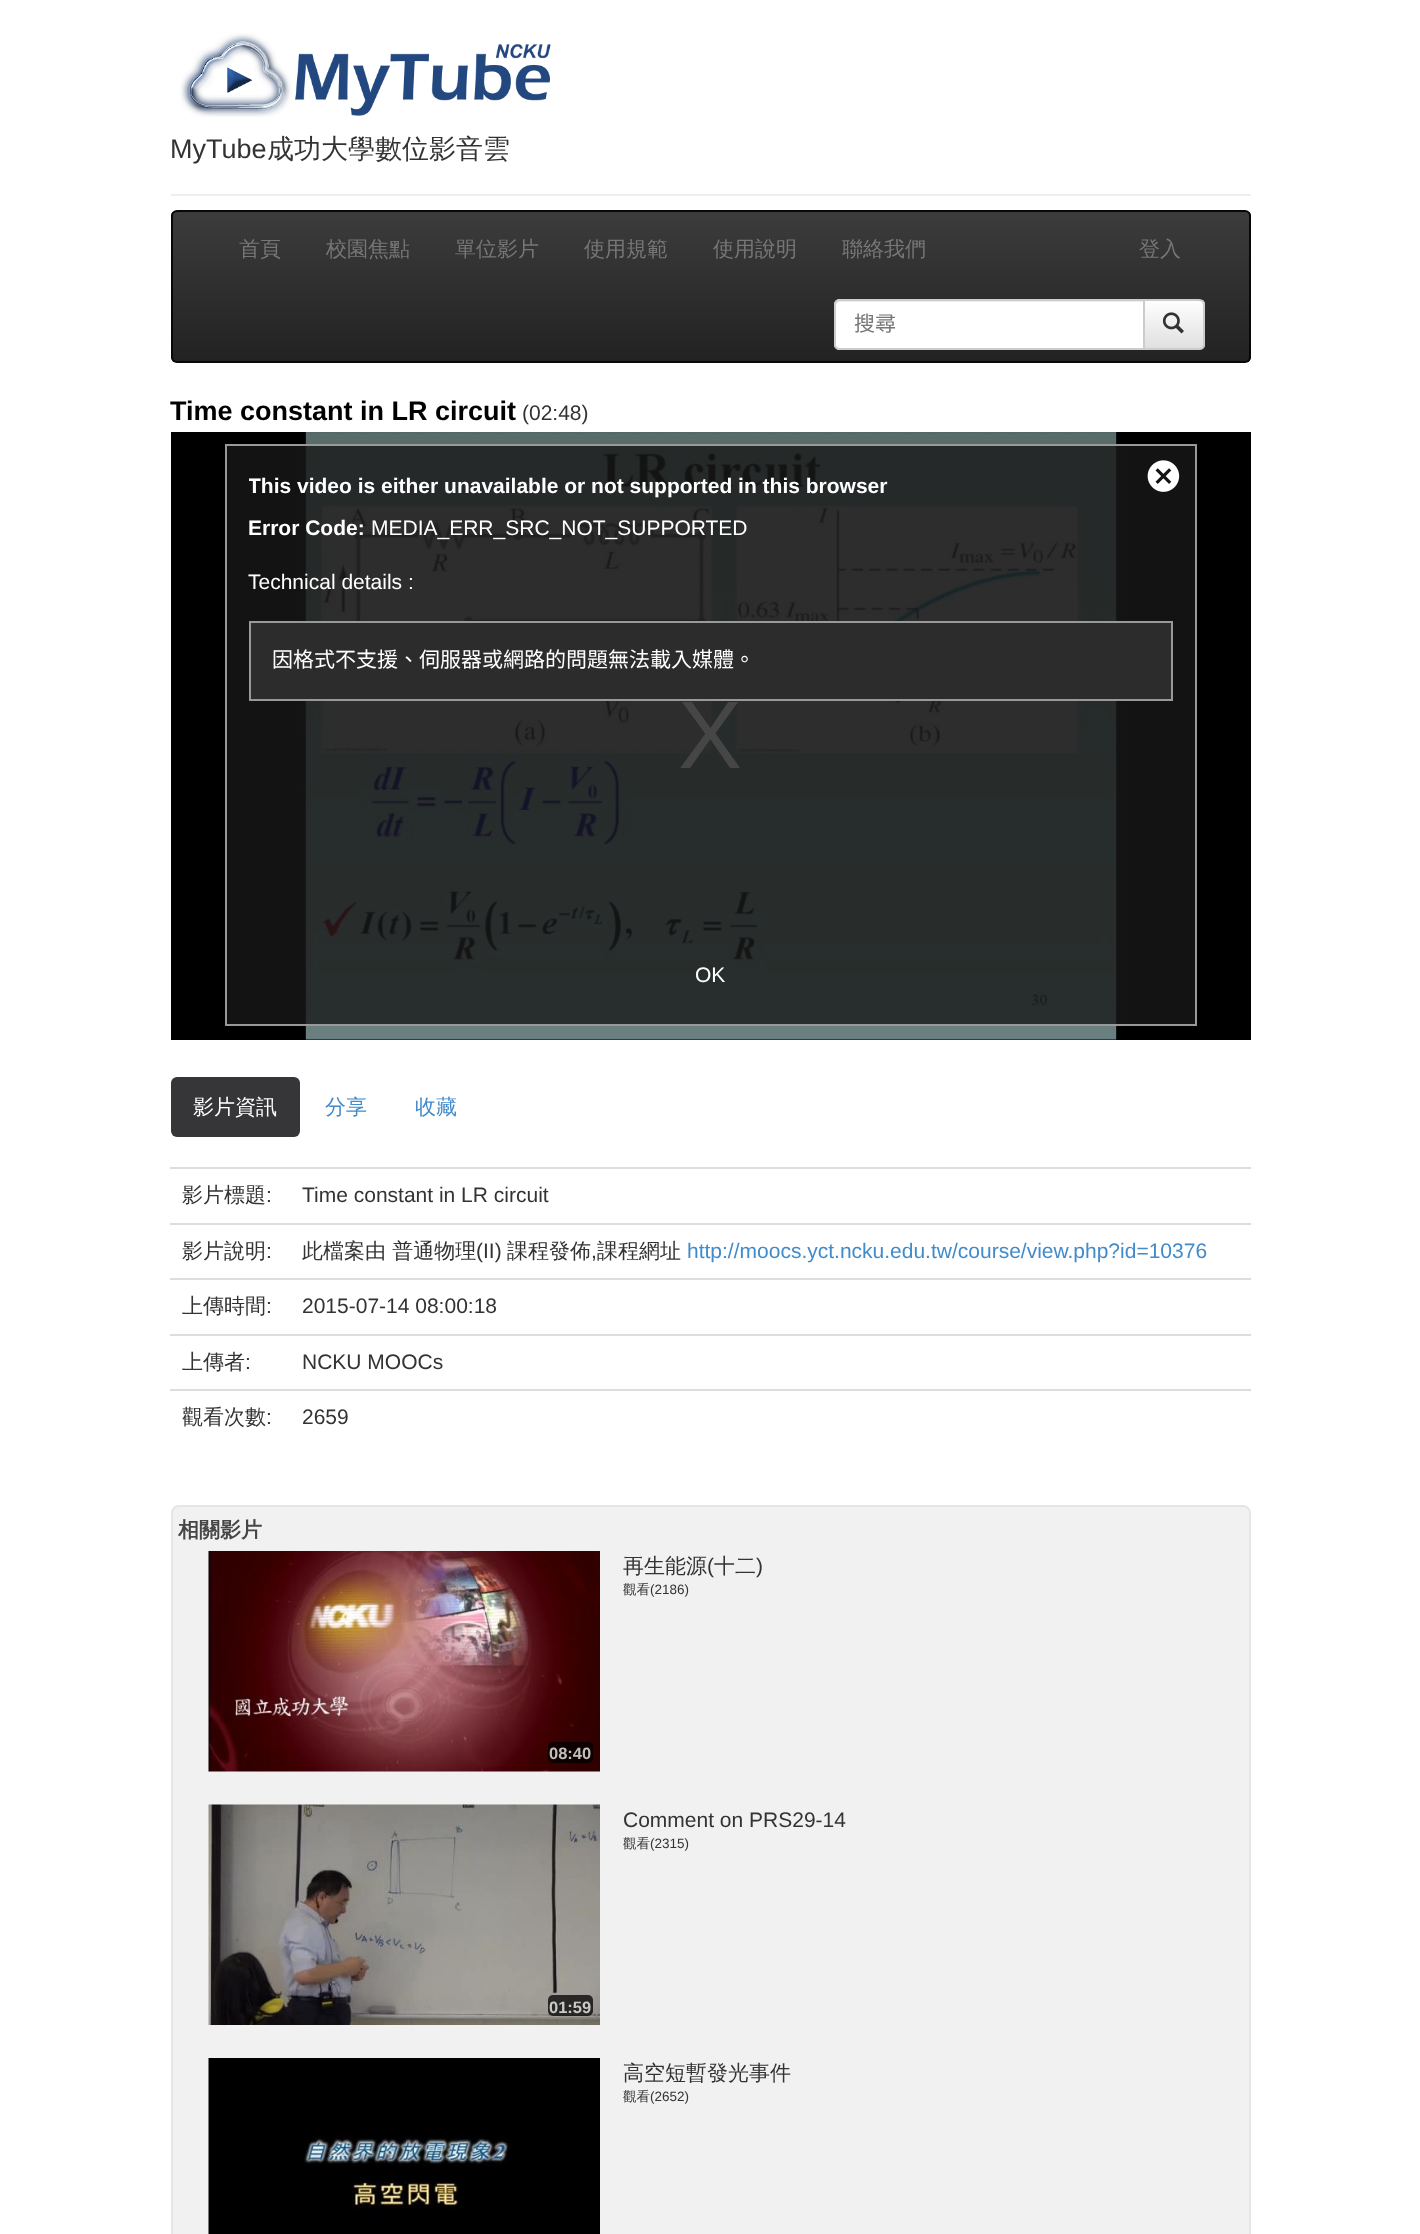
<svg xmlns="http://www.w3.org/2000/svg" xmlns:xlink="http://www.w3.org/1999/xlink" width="1420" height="2234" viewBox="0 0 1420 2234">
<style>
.cls-1{font:27px Liberation Sans;fill:#333333}
.cls-2{font:500 27px WenQuanYi Zen Hei;fill:#333333}
.cls-3{font:500 21px WenQuanYi Zen Hei;fill:#777777}
.cls-4{font:21px Noto Sans CJK TC;fill:#777777}
.cls-5{font:bold 27px Liberation Sans;fill:#000000}
.cls-6{font:21px Liberation Sans;fill:#333333}
.cls-7{font:bold 21px Liberation Sans;fill:#ffffff}
.cls-8{font:21px Liberation Sans;fill:#ffffff}
.cls-9{font:21px Noto Sans CJK TC;fill:#ffffff}
.cls-10{font:96px Liberation Sans;fill:#464646}
.cls-11{font:500 21px WenQuanYi Zen Hei;fill:#ffffff}
.cls-12{font:500 21px WenQuanYi Zen Hei;fill:#428bca}
.cls-13{font:500 21px WenQuanYi Zen Hei;fill:#333333}
.cls-14{font:21px Liberation Sans;fill:#428bca}
.cls-15{font:bold 21px WenQuanYi Zen Hei;fill:#464646}
.cls-16{font:500 13.5px WenQuanYi Zen Hei;fill:#333333}
.cls-17{font:13.5px Liberation Sans;fill:#333333}
.cls-18{font:bold 16.5px Liberation Sans;fill:#c2bfbf}
.cls-19{font:bold 16.5px Liberation Sans;fill:#c9c9c9}
</style>
<defs>
<clipPath id="clip1"><rect x="171" y="210" width="1080" height="153" rx="6"/></clipPath>
<linearGradient id="g1" gradientUnits="userSpaceOnUse" x1="711" y1="211" x2="711" y2="362"><stop offset="0" stop-color="#3c3c3c"/><stop offset="1" stop-color="#222222"/></linearGradient>
<clipPath id="clip2"><path d="M1143 299H1199C1202.5 299 1205 301.5 1205 305V344C1205 347.5 1202.5 350 1199 350H1143Z"/></clipPath>
<linearGradient id="g2" gradientUnits="userSpaceOnUse" x1="1174" y1="300" x2="1174" y2="348"><stop offset="0" stop-color="#ffffff"/><stop offset="1" stop-color="#e0e0e0"/></linearGradient>
<clipPath id="clip3"><rect x="249" y="446" width="924" height="487"/></clipPath>
</defs>
<rect width="100%" height="100%" fill="#ffffff"/>
<rect fill="#eeeeee" x="171" y="194" width="1080" height="2"/>
<image xlink:href="image0.png" x="180" y="33" width="371" height="84"/>
<g clip-path="url(#clip1)">
<rect fill="url(#g1)" x="171" y="212" width="1080" height="150"/>
</g>
<rect fill="none" stroke="#080808" stroke-width="2" x="172" y="211" width="1078" height="151" rx="5"/>
<g clip-path="url(#clip2)">
<rect fill="url(#g2)" x="1145" y="300" width="60" height="48"/>
</g>
<path fill="none" stroke="#cccccc" stroke-width="2" d="M1144 300H1199C1202 300 1204 302 1204 305V344C1204 347 1202 349 1199 349H1144Z"/>
<path fill="#ffffff" d="M840 299H1145V350H840C836.5 350 834 347.5 834 344V305C834 301.5 836.5 299 840 299Z"/>
<path fill="#ececec" d="M840 302H1143V300H841C838 300 836 303 836 306C836 304 838 302 840 302Z"/>
<path fill="none" stroke="#cccccc" stroke-width="2" d="M840 300H1144V349H840C837 349 835 347 835 344V305C835 302 837 300 840 300Z"/>
<image xlink:href="image1.png" x="1162" y="312" width="22" height="22"/>
<rect fill="#000000" x="171" y="432" width="1080" height="608"/>
<rect fill="#131313" x="227" y="446" width="968" height="578"/>
<image xlink:href="image2.png" x="301" y="432" width="822" height="608"/>
<rect fill="none" stroke="#999999" stroke-width="2" x="226" y="445" width="970" height="580"/>
<rect fill="#2c2c2c" stroke="#999999" stroke-width="2" x="250" y="622" width="922" height="78"/>
<image xlink:href="image3.png" x="1147" y="460" width="33" height="32"/>
<rect fill="#363638" x="171" y="1077" width="129" height="60" rx="6"/>
<rect fill="#dddddd" x="170" y="1167" width="1081" height="2"/>
<rect fill="#dddddd" x="170" y="1223" width="1081" height="2"/>
<rect fill="#dddddd" x="170" y="1278" width="1081" height="2"/>
<rect fill="#dddddd" x="170" y="1334" width="1081" height="2"/>
<rect fill="#dddddd" x="170" y="1389" width="1081" height="2"/>
<rect fill="#f1f1f1" stroke="#e5e5e5" stroke-width="2" x="172" y="1506" width="1078" height="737" rx="7"/>
<image xlink:href="image4.png" x="208" y="1551" width="392" height="221"/>
<rect fill="#000000" fill-opacity="0.75" x="548" y="1742" width="45" height="21" rx="5"/>
<image xlink:href="image5.png" x="208" y="1804" width="392" height="221"/>
<rect fill="#000000" fill-opacity="0.75" x="548" y="1995" width="45" height="21" rx="5"/>
<image xlink:href="image6.png" x="208" y="2058" width="392" height="176"/>
<text class="cls-1" x="170" y="158">MyTube</text>
<text class="cls-2" x="267" y="158">成功大學數位影音雲</text>
<text class="cls-3" x="239" y="256">首頁</text>
<text class="cls-3" x="326" y="256">校園焦點</text>
<text class="cls-3" x="455" y="256">單位影片</text>
<text class="cls-3" x="584" y="256">使用規範</text>
<text class="cls-3" x="713" y="256">使用說明</text>
<text class="cls-3" x="842" y="256">聯絡我們</text>
<text class="cls-3" x="1139" y="256">登入</text>
<text class="cls-4" x="854" y="331">搜尋</text>
<text class="cls-5" x="170" y="420">Time constant in LR circuit</text>
<text class="cls-6" x="522" y="420">(02:48)</text>
<g clip-path="url(#clip3)">
<text class="cls-7" x="248" y="493">This video is either unavailable or not supported in this browser</text>
</g>
<text class="cls-7" x="248" y="535">Error Code:</text>
<text class="cls-8" x="371" y="535">MEDIA_ERR_SRC_NOT_SUPPORTED</text>
<text class="cls-8" x="248" y="589">Technical details :</text>
<text class="cls-9" x="272" y="667">因格式不支援、伺服器或網路的問題無法載入媒體。</text>
<text class="cls-8" x="695" y="982">OK</text>
<text class="cls-10" x="678" y="768">X</text>
<text class="cls-11" x="193" y="1114">影片資訊</text>
<text class="cls-12" x="325" y="1114">分享</text>
<text class="cls-12" x="415" y="1114">收藏</text>
<text class="cls-13" x="182" y="1202">影片標題</text>
<text class="cls-6" x="266" y="1202">:</text>
<text class="cls-6" x="302" y="1202">Time constant in LR circuit</text>
<text class="cls-13" x="182" y="1258">影片說明</text>
<text class="cls-6" x="266" y="1258">:</text>
<text class="cls-13" x="302" y="1258">此檔案由 普通物理</text>
<text class="cls-6" x="476" y="1258">(II)</text>
<text class="cls-13" x="507" y="1258">課程發佈</text>
<text class="cls-6" x="591" y="1258">,</text>
<text class="cls-13" x="597" y="1258">課程網址</text>
<text class="cls-14" x="687" y="1258">http://moocs.yct.ncku.edu.tw/course/view.php?id=10376</text>
<text class="cls-13" x="182" y="1313">上傳時間</text>
<text class="cls-6" x="266" y="1313">:</text>
<text class="cls-6" x="302" y="1313">2015-07-14 08:00:18</text>
<text class="cls-13" x="182" y="1369">上傳者</text>
<text class="cls-6" x="245" y="1369">:</text>
<text class="cls-6" x="302" y="1369">NCKU MOOCs</text>
<text class="cls-13" x="182" y="1424">觀看次數</text>
<text class="cls-6" x="266" y="1424">:</text>
<text class="cls-6" x="302" y="1424">2659</text>
<text class="cls-15" x="178" y="1537">相關影片</text>
<text class="cls-13" x="623" y="1573">再生能源</text>
<text class="cls-6" x="707" y="1573">(</text>
<text class="cls-13" x="714" y="1573">十二</text>
<text class="cls-6" x="756" y="1573">)</text>
<text class="cls-16" x="623" y="1594">觀看</text>
<text class="cls-17" x="650" y="1594">(2186)</text>
<text class="cls-18" x="549" y="1759">08:40</text>
<text class="cls-6" x="623" y="1827">Comment on PRS29-14</text>
<text class="cls-16" x="623" y="1848">觀看</text>
<text class="cls-17" x="650" y="1848">(2315)</text>
<text class="cls-19" x="549" y="2013">01:59</text>
<text class="cls-13" x="623" y="2080">高空短暫發光事件</text>
<text class="cls-16" x="623" y="2101">觀看</text>
<text class="cls-17" x="650" y="2101">(2652)</text>
</svg>
